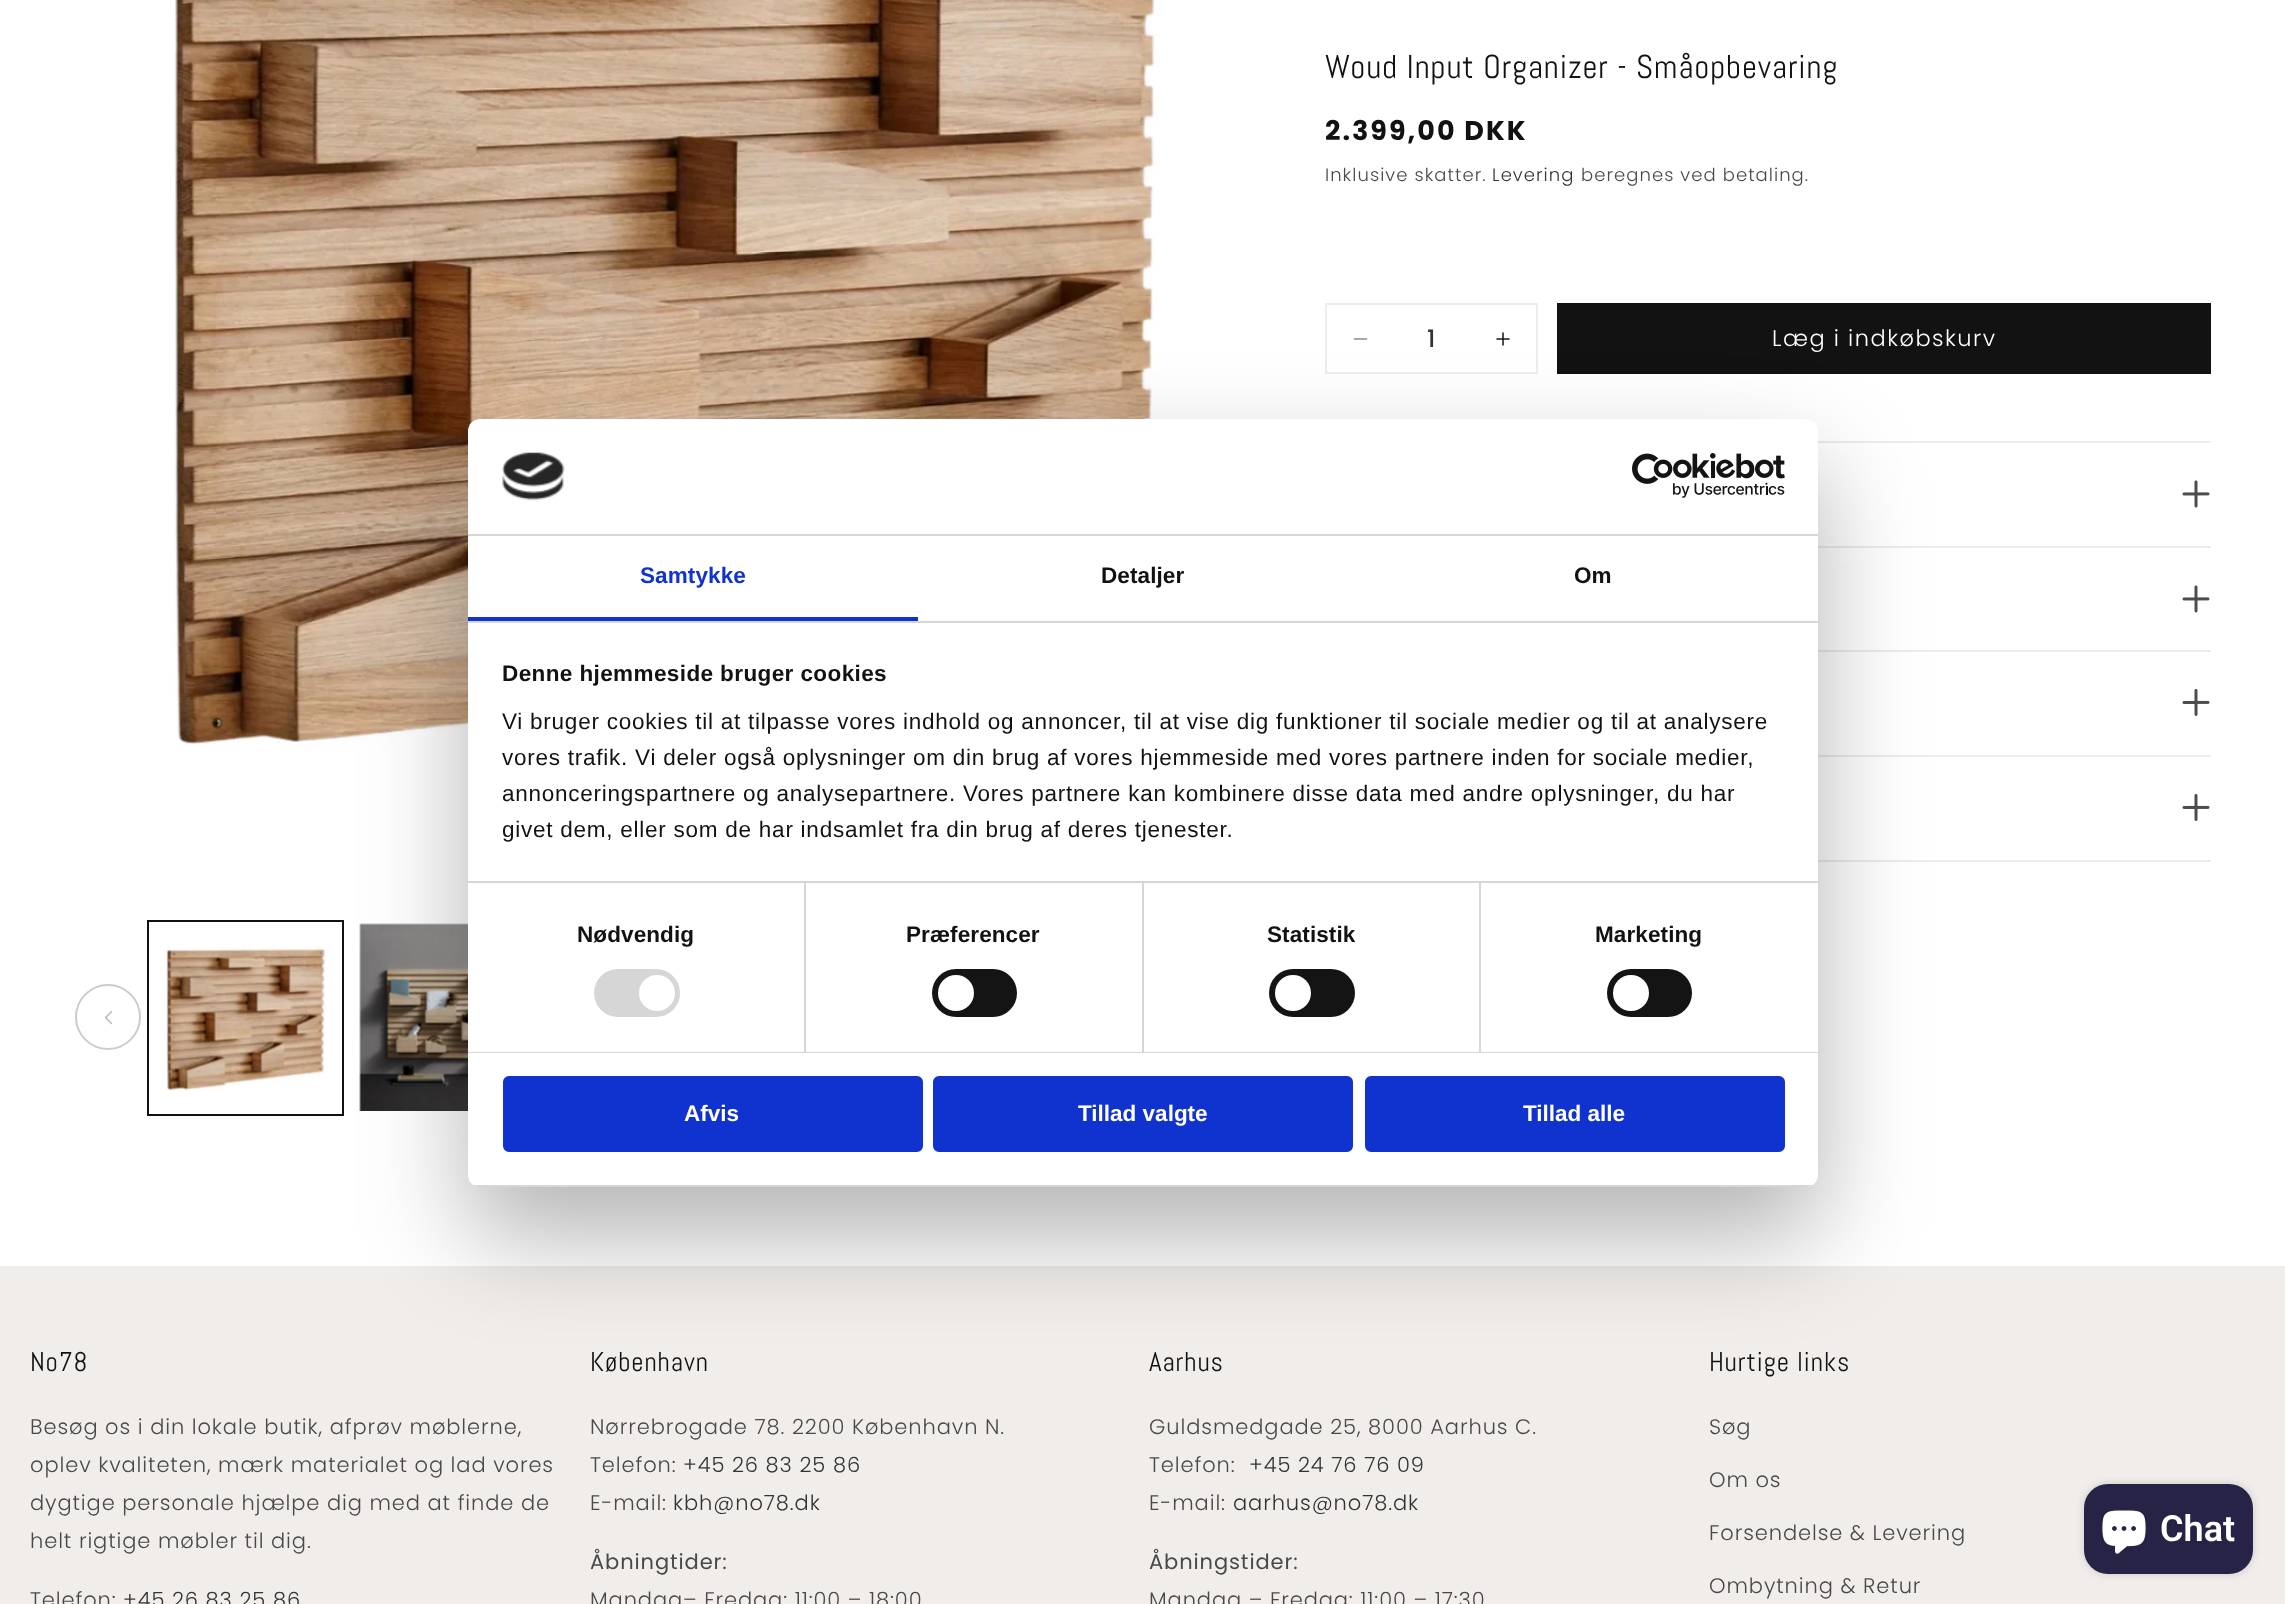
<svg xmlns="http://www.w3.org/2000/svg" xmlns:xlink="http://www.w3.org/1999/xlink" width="2285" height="1604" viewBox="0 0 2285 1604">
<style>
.cls-1{font:33px Abel;letter-spacing:0.9px;fill:#121212}
.cls-2{font:bold 27px Poppins;letter-spacing:2px;fill:#121212}
.cls-3{font:300 18px Poppins;letter-spacing:1.05px;fill:#4a4948}
.cls-4{font:300 18px Poppins;letter-spacing:1.05px;fill:#333332}
.cls-5{font:500 24px Poppins;fill:#333332}
.cls-6{font:300 22.5px Poppins;letter-spacing:1.5px;fill:#ffffff}
.cls-7{font:bold 22.5px Liberation Sans;letter-spacing:0.1px;fill:#1032cf}
.cls-8{font:bold 22.5px Liberation Sans;letter-spacing:0.1px;fill:#121212}
.cls-9{font:bold 22.5px Liberation Sans;letter-spacing:0.4px;fill:#121212}
.cls-10{font:22.5px Liberation Sans;letter-spacing:0.75px;fill:#121212}
.cls-11{font:bold 22.5px Liberation Sans;fill:#ffffff}
.cls-12{font:27px Abel;letter-spacing:0.9px;fill:#121212}
.cls-13{font:300 21px Poppins;letter-spacing:0.9px;fill:#4a4948}
.cls-14{font:300 21px Poppins;letter-spacing:0.9px;fill:#333332}
.cls-15{font:21px Poppins;letter-spacing:0.9px;fill:#4a4948}
.cls-16{font:600 36px Roboto;fill:#ffffff}
</style>
<defs>
<clipPath id="clip1"><rect x="468" y="419" width="1350" height="768" rx="12"/></clipPath>
</defs>
<rect width="100%" height="100%" fill="#ffffff"/>
<image xlink:href="image0.png" x="173" y="0" width="987" height="747"/>
<circle fill="none" stroke="#cccccc" stroke-width="2" cx="108" cy="1017" r="32"/>
<image xlink:href="image1.png" x="105" y="1011" width="8" height="14"/>
<rect fill="none" stroke="#121212" stroke-width="2" x="148" y="921" width="195" height="194"/>
<image xlink:href="image2.png" x="165" y="947" width="162" height="144"/>
<image xlink:href="image3.png" x="359" y="923" width="109" height="188"/>
<image xlink:href="image4.png" x="1353" y="338" width="15" height="2"/>
<image xlink:href="image5.png" x="1496" y="332" width="14" height="14"/>
<rect fill="none" stroke="#ededed" stroke-width="2" x="1326" y="304" width="211" height="69"/>
<rect fill="#121212" x="1557" y="303" width="654" height="71"/>
<rect fill="#ececec" x="1818" y="441" width="393" height="2"/>
<rect fill="#ececec" x="1818" y="546" width="393" height="2"/>
<image xlink:href="image6.png" x="2182" y="480" width="28" height="28"/>
<rect fill="#ececec" x="1818" y="650" width="393" height="2"/>
<image xlink:href="image6.png" x="2182" y="585" width="28" height="28"/>
<rect fill="#ececec" x="1818" y="755" width="393" height="2"/>
<image xlink:href="image7.png" x="2182" y="689" width="28" height="27"/>
<rect fill="#ececec" x="1818" y="860" width="393" height="2"/>
<image xlink:href="image7.png" x="2182" y="794" width="28" height="27"/>
<rect fill="#f0edea" x="0" y="1266" width="2285" height="338"/>
<rect fill="#000000" fill-opacity="0.3" filter="blur(51px)" x="468" y="467" width="1350" height="768" rx="12"/>
<rect fill="#ffffff" x="468" y="419" width="1350" height="768" rx="12"/>
<rect fill="#d6d6d6" x="468" y="534" width="1350" height="2"/>
<image xlink:href="image8.png" x="502" y="452" width="63" height="49"/>
<image xlink:href="image9.png" x="1632" y="453" width="153" height="45"/>
<rect fill="#d6d6d6" x="468" y="621" width="1350" height="2"/>
<rect fill="#1032cf" x="468" y="617" width="450" height="4"/>
<rect fill="#d6d6d6" x="804" y="882" width="2" height="170"/>
<rect fill="#d6d6d6" x="1142" y="882" width="2" height="170"/>
<rect fill="#d6d6d6" x="1479" y="882" width="2" height="170"/>
<rect fill="#d6d6d6" x="468" y="881" width="1350" height="2"/>
<rect fill="#d6d6d6" x="468" y="1052" width="1350" height="1"/>
<rect fill="#d6d6d6" x="594" y="969" width="86" height="48" rx="24"/>
<circle fill="#ffffff" cx="657" cy="993" r="18"/>
<rect fill="#141414" x="932" y="969" width="85" height="48" rx="24"/>
<circle fill="#ffffff" cx="956" cy="993" r="18"/>
<rect fill="#141414" x="1269" y="969" width="86" height="48" rx="24"/>
<circle fill="#ffffff" cx="1293" cy="993" r="18"/>
<rect fill="#141414" x="1607" y="969" width="85" height="48" rx="24"/>
<circle fill="#ffffff" cx="1631" cy="993" r="18"/>
<g clip-path="url(#clip1)">
<rect fill="#d6d6d6" x="468" y="1185" width="1350" height="2"/>
</g>
<rect fill="#1032cf" stroke="#1032cf" stroke-width="3" x="504.5" y="1077.5" width="417" height="73" rx="4.5"/>
<rect fill="#1032cf" stroke="#1032cf" stroke-width="3" x="934.5" y="1077.5" width="417" height="73" rx="4.5"/>
<rect fill="#1032cf" stroke="#1032cf" stroke-width="3" x="1366.5" y="1077.5" width="417" height="73" rx="4.5"/>
<rect fill="#000000" fill-opacity="0.15" filter="blur(4px)" x="2084" y="1484" width="169" height="90" rx="24"/>
<rect fill="#272347" x="2084" y="1484" width="169" height="90" rx="24"/>
<image xlink:href="image10.png" x="2102" y="1510" width="44" height="44"/>
<text class="cls-1" x="1325" y="78">Woud Input Organizer - Småopbevaring</text>
<text class="cls-2" x="1325" y="140">2.399,00 DKK</text>
<text class="cls-3" x="1325" y="181">Inklusive skatter.</text>
<text class="cls-4" x="1492" y="181">Levering</text>
<text class="cls-3" x="1581" y="181">beregnes ved betaling.</text>
<text class="cls-5" x="1427" y="347">1</text>
<text class="cls-6" x="1772" y="346">Læg i indkøbskurv</text>
<text class="cls-7" x="640" y="583">Samtykke</text>
<text class="cls-8" x="1101" y="583">Detaljer</text>
<text class="cls-8" x="1574" y="583">Om</text>
<text class="cls-9" x="502" y="681">Denne hjemmeside bruger cookies</text>
<text class="cls-10"><tspan x="502" y="729">Vi bruger cookies til at tilpasse vores indhold og annoncer, til at vise dig funktioner til sociale medier og til at analysere</tspan><tspan x="502" y="765">vores trafik. Vi deler også oplysninger om din brug af vores hjemmeside med vores partnere inden for sociale medier,</tspan><tspan x="502" y="801">annonceringspartnere og analysepartnere. Vores partnere kan kombinere disse data med andre oplysninger, du har</tspan><tspan x="502" y="837">givet dem, eller som de har indsamlet fra din brug af deres tjenester.</tspan></text>
<text class="cls-8" x="577" y="942">Nødvendig</text>
<text class="cls-8" x="906" y="942">Præferencer</text>
<text class="cls-8" x="1267" y="942">Statistik</text>
<text class="cls-8" x="1595" y="942">Marketing</text>
<text class="cls-11" x="684" y="1121">Afvis</text>
<text class="cls-11" x="1078" y="1121">Tillad valgte</text>
<text class="cls-11" x="1523" y="1121">Tillad alle</text>
<text class="cls-12" x="30" y="1371">No78</text>
<text class="cls-13"><tspan x="30" y="1434">Besøg os i din lokale butik, afprøv møblerne,</tspan><tspan x="30" y="1472">oplev kvaliteten, mærk materialet og lad vores</tspan><tspan x="30" y="1510">dygtige personale hjælpe dig med at finde de</tspan><tspan x="30" y="1548">helt rigtige møbler til dig.</tspan></text>
<text class="cls-13" x="30" y="1607">Telefon:</text>
<text class="cls-14" x="123" y="1607">+45 26 83 25 86</text>
<text class="cls-12" x="590" y="1371">København</text>
<text class="cls-13"><tspan x="590" y="1434">Nørrebrogade 78. 2200 København N.</tspan><tspan x="590" y="1472">Telefon:</tspan></text>
<text class="cls-14" x="683" y="1472">+45 26 83 25 86</text>
<text class="cls-13" x="590" y="1510">E-mail:</text>
<text class="cls-14" x="673" y="1510">kbh@no78.dk</text>
<text class="cls-15" x="590" y="1569">Åbningtider:</text>
<text class="cls-13" x="590" y="1607">Mandag– Fredag: 11:00 – 18:00</text>
<text class="cls-12" x="1149" y="1371">Aarhus</text>
<text class="cls-13"><tspan x="1149" y="1434">Guldsmedgade 25, 8000 Aarhus C.</tspan><tspan x="1149" y="1472">Telefon:</tspan></text>
<text class="cls-14" x="1249" y="1472">+45 24 76 76 09</text>
<text class="cls-13" x="1149" y="1510">E-mail:</text>
<text class="cls-14" x="1233" y="1510">aarhus@no78.dk</text>
<text class="cls-15" x="1149" y="1569">Åbningstider:</text>
<text class="cls-13" x="1149" y="1607">Mandag – Fredag: 11:00 – 17:30</text>
<text class="cls-12" x="1709" y="1371">Hurtige links</text>
<text class="cls-13" x="1709" y="1434">Søg</text>
<text class="cls-13" x="1709" y="1487">Om os</text>
<text class="cls-13" x="1709" y="1540">Forsendelse &amp; Levering</text>
<text class="cls-13" x="1709" y="1593">Ombytning &amp; Retur</text>
<text class="cls-16" x="2160" y="1541">Chat</text>
</svg>
